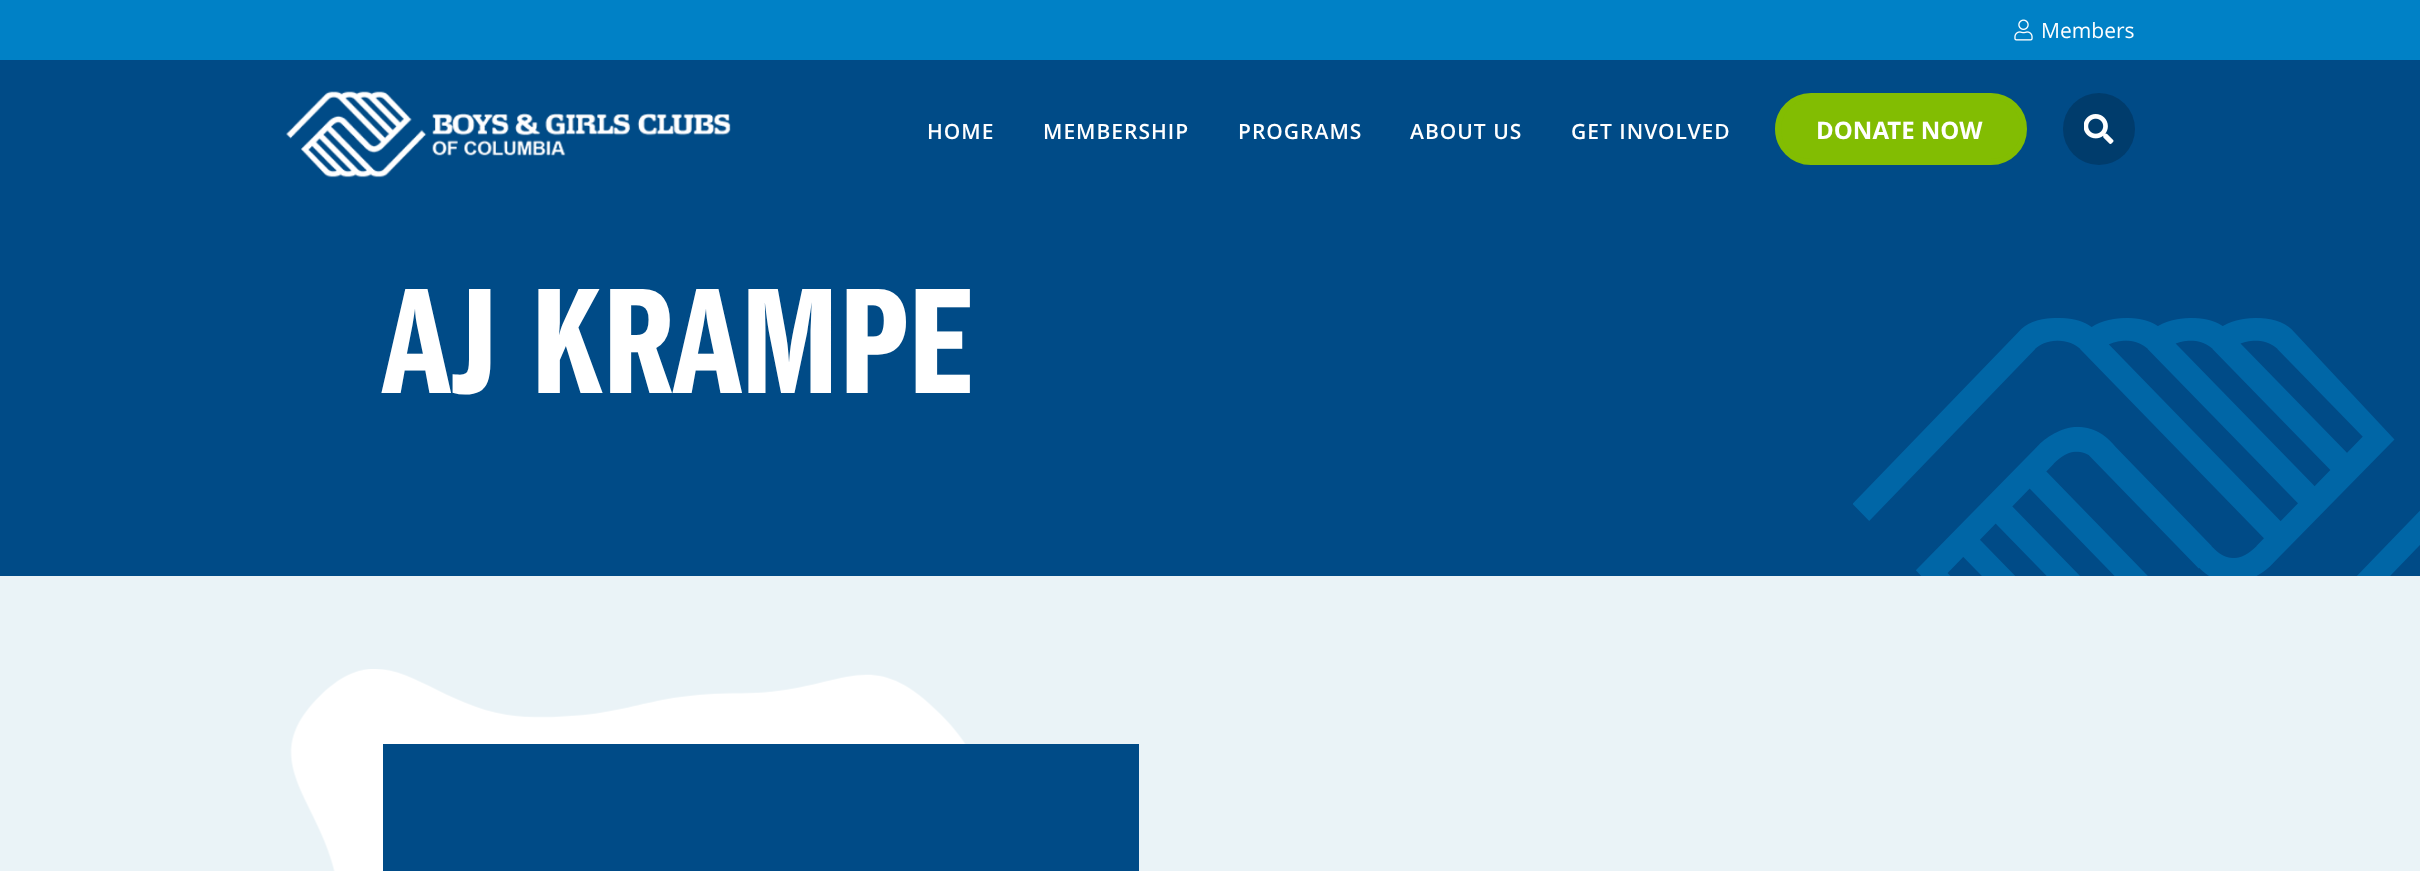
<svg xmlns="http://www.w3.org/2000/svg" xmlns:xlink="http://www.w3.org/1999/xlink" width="2420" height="871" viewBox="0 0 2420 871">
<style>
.cls-1{font:21px Open Sans;fill:#ffffff}
.cls-2{font:600 21px Open Sans;letter-spacing:1px;fill:#ffffff}
.cls-3{font:bold 24px Open Sans;fill:#ffffff}
.cls-4{font:600 156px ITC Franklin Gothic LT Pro;fill:#ffffff}
</style>
<rect width="100%" height="100%" fill="#0081c6"/>
<image xlink:href="image0.png" x="2014" y="19" width="19" height="22"/>
<rect fill="#004b87" x="0" y="60" width="2420" height="516"/>
<image xlink:href="image1.png" x="286" y="91" width="445" height="87"/>
<rect fill="#82bd02" stroke="#82bd02" stroke-width="6" x="1778" y="96" width="246" height="66" rx="33"/>
<circle fill="#003c6c" cx="2099" cy="129" r="36"/>
<image xlink:href="image2.png" x="2084" y="114" width="30" height="30"/>
<image xlink:href="image3.png" x="1853" y="318" width="567" height="258"/>
<rect fill="#eaf3f7" x="0" y="576" width="2420" height="295"/>
<image xlink:href="image4.png" x="290" y="669" width="676" height="202"/>
<rect fill="#004b87" x="383" y="744" width="756" height="127"/>
<text class="cls-1" x="2041" y="38">Members</text>
<text class="cls-2" x="927" y="139">HOME</text>
<text class="cls-2" x="1043" y="139">MEMBERSHIP</text>
<text class="cls-2" x="1238" y="139">PROGRAMS</text>
<text class="cls-2" x="1410" y="139">ABOUT US</text>
<text class="cls-2" x="1571" y="139">GET INVOLVED</text>
<text class="cls-3" x="1816" y="139">DONATE NOW</text>
<text class="cls-4" x="383" y="393">AJ KRAMPE</text>
</svg>
